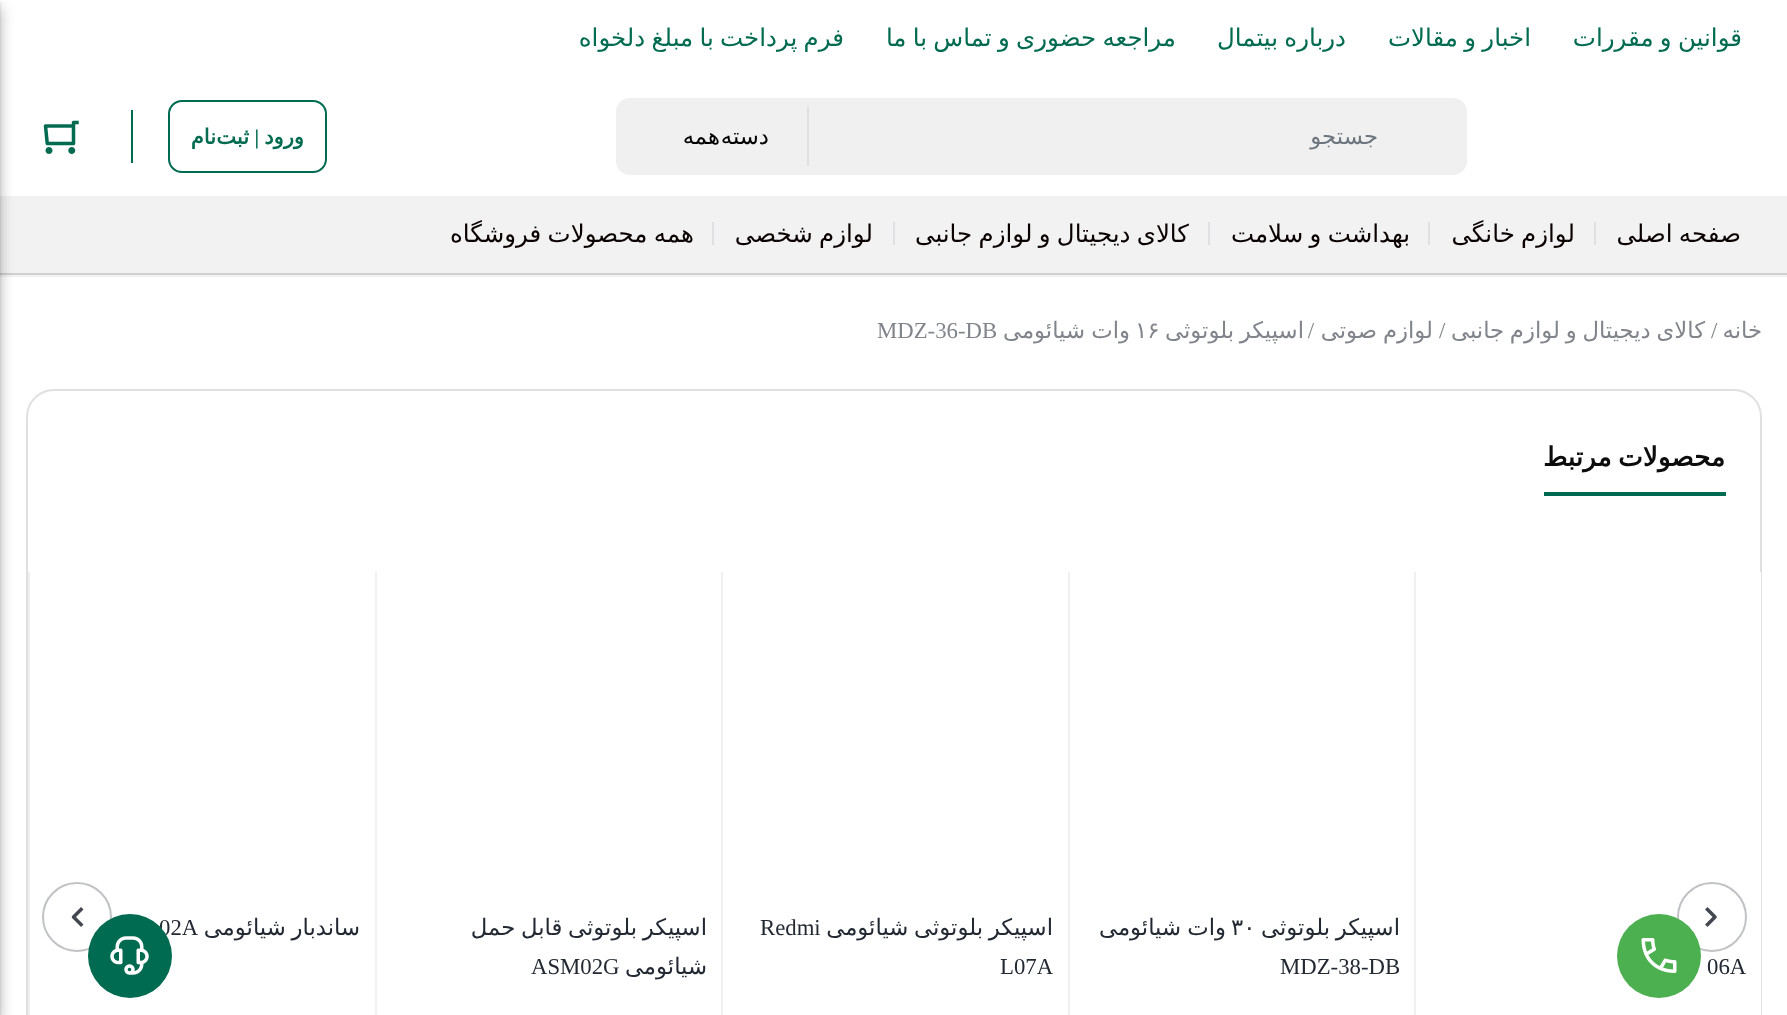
<svg xmlns="http://www.w3.org/2000/svg" xmlns:xlink="http://www.w3.org/1999/xlink" width="1787" height="1015" viewBox="0 0 1787 1015">
<style>
.cls-1{font:24.5px DejaVu Sans;direction:rtl;fill:#006b50}
.cls-2{font:22.75px DejaVu Sans;direction:rtl;fill:#6c757d}
.cls-3{font:22.75px DejaVu Sans;direction:rtl;fill:#000000}
.cls-4{font:bold 21px DejaVu Sans;direction:rtl;fill:#006b50}
.cls-5{font:bold 21px Liberation Serif;direction:rtl;fill:#006b50}
.cls-6{font:24.5px DejaVu Sans;direction:rtl;fill:#0a0000}
.cls-7{font:22.75px DejaVu Sans;direction:rtl;fill:#81858b}
.cls-8{font:22.75px Liberation Serif;fill:#81858b}
.cls-9{font:22.75px Liberation Serif;direction:rtl;fill:#81858b}
.cls-10{font:22.75px DejaVu Sans;fill:#81858b}
.cls-11{font:bold 26.25px DejaVu Sans;direction:rtl;fill:#0c0c0c}
.cls-12{font:22.75px Liberation Serif;fill:#232933}
.cls-13{font:22.75px DejaVu Sans;direction:rtl;fill:#232933}
.cls-14{font:22.75px DejaVu Sans;fill:#232933}
</style>
<rect width="100%" height="100%" fill="#ffffff"/>
<rect fill="#f0f0f1" stroke="#f0f0f1" stroke-width="2" x="617" y="99" width="849" height="75" rx="13"/>
<rect fill="#e0e0e2" x="807" y="107" width="2" height="59"/>
<rect fill="none" stroke="#006b50" stroke-width="2" x="169" y="101" width="157" height="71" rx="13"/>
<rect fill="#006b50" x="131" y="110" width="2" height="53"/>
<image xlink:href="image0.png" x="43" y="120" width="36" height="34"/>
<path fill="#f2f2f2" d="M0 273V277H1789V200H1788V273Z"/>
<path fill="#d0d0d0" d="M0 273V275H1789V198H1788V273Z"/>
<rect fill="#f2f2f2" x="0" y="196" width="1787" height="77"/>
<rect fill="#000000" fill-opacity="0.3" filter="blur(7px)" x="-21" y="7" width="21" height="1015"/>
<rect fill="#000000" fill-opacity="0.14" filter="blur(1px)" x="-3" y="2" width="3" height="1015"/>
<rect fill="#e0e0e2" x="1594" y="222" width="2" height="23"/>
<rect fill="#e0e0e2" x="1428" y="222" width="2" height="23"/>
<rect fill="#e0e0e2" x="1208" y="222" width="2" height="23"/>
<rect fill="#e0e0e2" x="893" y="222" width="2" height="23"/>
<rect fill="#e0e0e2" x="712" y="222" width="2" height="23"/>
<rect fill="none" stroke="#e0e0e2" stroke-width="2" x="27" y="390" width="1734" height="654" rx="27"/>
<rect fill="#006b50" x="1544" y="492" width="182" height="4"/>
<circle fill="none" stroke="#c0c2c5" stroke-width="2" cx="1712" cy="917" r="34"/>
<image xlink:href="image1.png" x="1705" y="907" width="12" height="20"/>
<circle fill="none" stroke="#c0c2c5" stroke-width="2" cx="77" cy="917" r="34"/>
<image xlink:href="image2.png" x="71" y="907" width="13" height="20"/>
<rect fill="#ffffff" x="1760" y="572" width="1" height="443"/>
<rect fill="#f0f0f1" x="1414" y="572" width="2" height="443"/>
<rect fill="#f0f0f1" x="1068" y="572" width="2" height="443"/>
<rect fill="#f0f0f1" x="721" y="572" width="2" height="443"/>
<rect fill="#f0f0f1" x="375" y="572" width="2" height="443"/>
<rect fill="#f0f0f1" x="28" y="572" width="2" height="443"/>
<circle fill="#4caf50" cx="1659" cy="956" r="42"/>
<image xlink:href="image4.png" x="1641" y="938" width="36" height="35"/>
<text class="cls-1" x="1742" y="46" word-spacing="-1.5">قوانین و مقررات</text>
<text class="cls-1" x="1531" y="46" word-spacing="-1.5">اخبار و مقالات</text>
<text class="cls-1" x="1346" y="46" word-spacing="-1.5">درباره بیتمال</text>
<text class="cls-1" x="1176" y="46" word-spacing="-1.5">مراجعه حضوری و تماس با ما</text>
<text class="cls-1" x="844" y="46" word-spacing="-1.5">فرم پرداخت با مبلغ دلخواه</text>
<text class="cls-2" x="1378" y="144">جستجو</text>
<text class="cls-3" x="769" y="144">دسته</text>
<text class="cls-3" x="720" y="144">همه</text>
<text class="cls-4" x="304" y="144">ورود</text>
<text class="cls-5" x="259" y="144">|</text>
<text class="cls-4" x="249" y="144">ثبت</text>
<text class="cls-4" x="216" y="144">نام</text>
<text class="cls-6" x="1741" y="242" word-spacing="-1.5">صفحه اصلی</text>
<text class="cls-6" x="1575" y="242" word-spacing="-1.5">لوازم خانگی</text>
<text class="cls-6" x="1410" y="242" word-spacing="-1.5">بهداشت و سلامت</text>
<text class="cls-6" x="1189" y="242" word-spacing="-1.5">کالای دیجیتال و لوازم جانبی</text>
<text class="cls-6" x="873" y="242" word-spacing="-1.5">لوازم شخصی</text>
<text class="cls-6" x="694" y="242" word-spacing="-1.5">همه محصولات فروشگاه</text>
<text class="cls-7" x="1762" y="338">خانه</text>
<text class="cls-8" x="1711" y="338">/</text>
<text class="cls-7" x="1705" y="338" word-spacing="-1.5">کالای دیجیتال و لوازم جانبی</text>
<text class="cls-8" x="1439" y="338">/</text>
<text class="cls-7" x="1433" y="338" word-spacing="-1.5">لوازم صوتی</text>
<text class="cls-9" x="1314" y="338">/</text>
<text class="cls-7" x="1304" y="338" word-spacing="-1.5">اسپیکر بلوتوثی</text>
<text class="cls-10" x="1135" y="338">۱۶</text>
<text class="cls-7" x="1130" y="338" word-spacing="-1">وات شیائومی</text>
<text class="cls-8" x="877" y="338">MDZ-36-DB</text>
<text class="cls-11" x="1725" y="466" word-spacing="-2">محصولات مرتبط</text>
<text class="cls-12" x="1707" y="974">06A</text>
<text class="cls-13" x="1400" y="935" word-spacing="-1.5">اسپیکر بلوتوثی</text>
<text class="cls-14" x="1231" y="935">۳۰</text>
<text class="cls-13" x="1226" y="935" word-spacing="-1">وات شیائومی</text>
<text class="cls-12" x="1280" y="974">MDZ-38-DB</text>
<text class="cls-13" x="1053" y="935" word-spacing="-1.5">اسپیکر بلوتوثی شیائومی</text>
<text class="cls-12" x="760" y="935">Redmi</text>
<text class="cls-12" x="1000" y="974">L07A</text>
<text class="cls-13"><tspan x="707" y="935" word-spacing="-1.5">اسپیکر بلوتوثی قابل حمل</tspan><tspan x="707" y="974">شیائومی</tspan></text>
<text class="cls-12" x="531" y="974">ASM02G</text>
<text class="cls-13" x="360" y="935" word-spacing="-1.5">ساندبار شیائومی</text>
<text class="cls-12" x="159" y="935">02A</text>
<circle fill="#006b50" cx="130" cy="956" r="42"/>
<image xlink:href="image3.png" x="110" y="936" width="39" height="39"/>
</svg>
